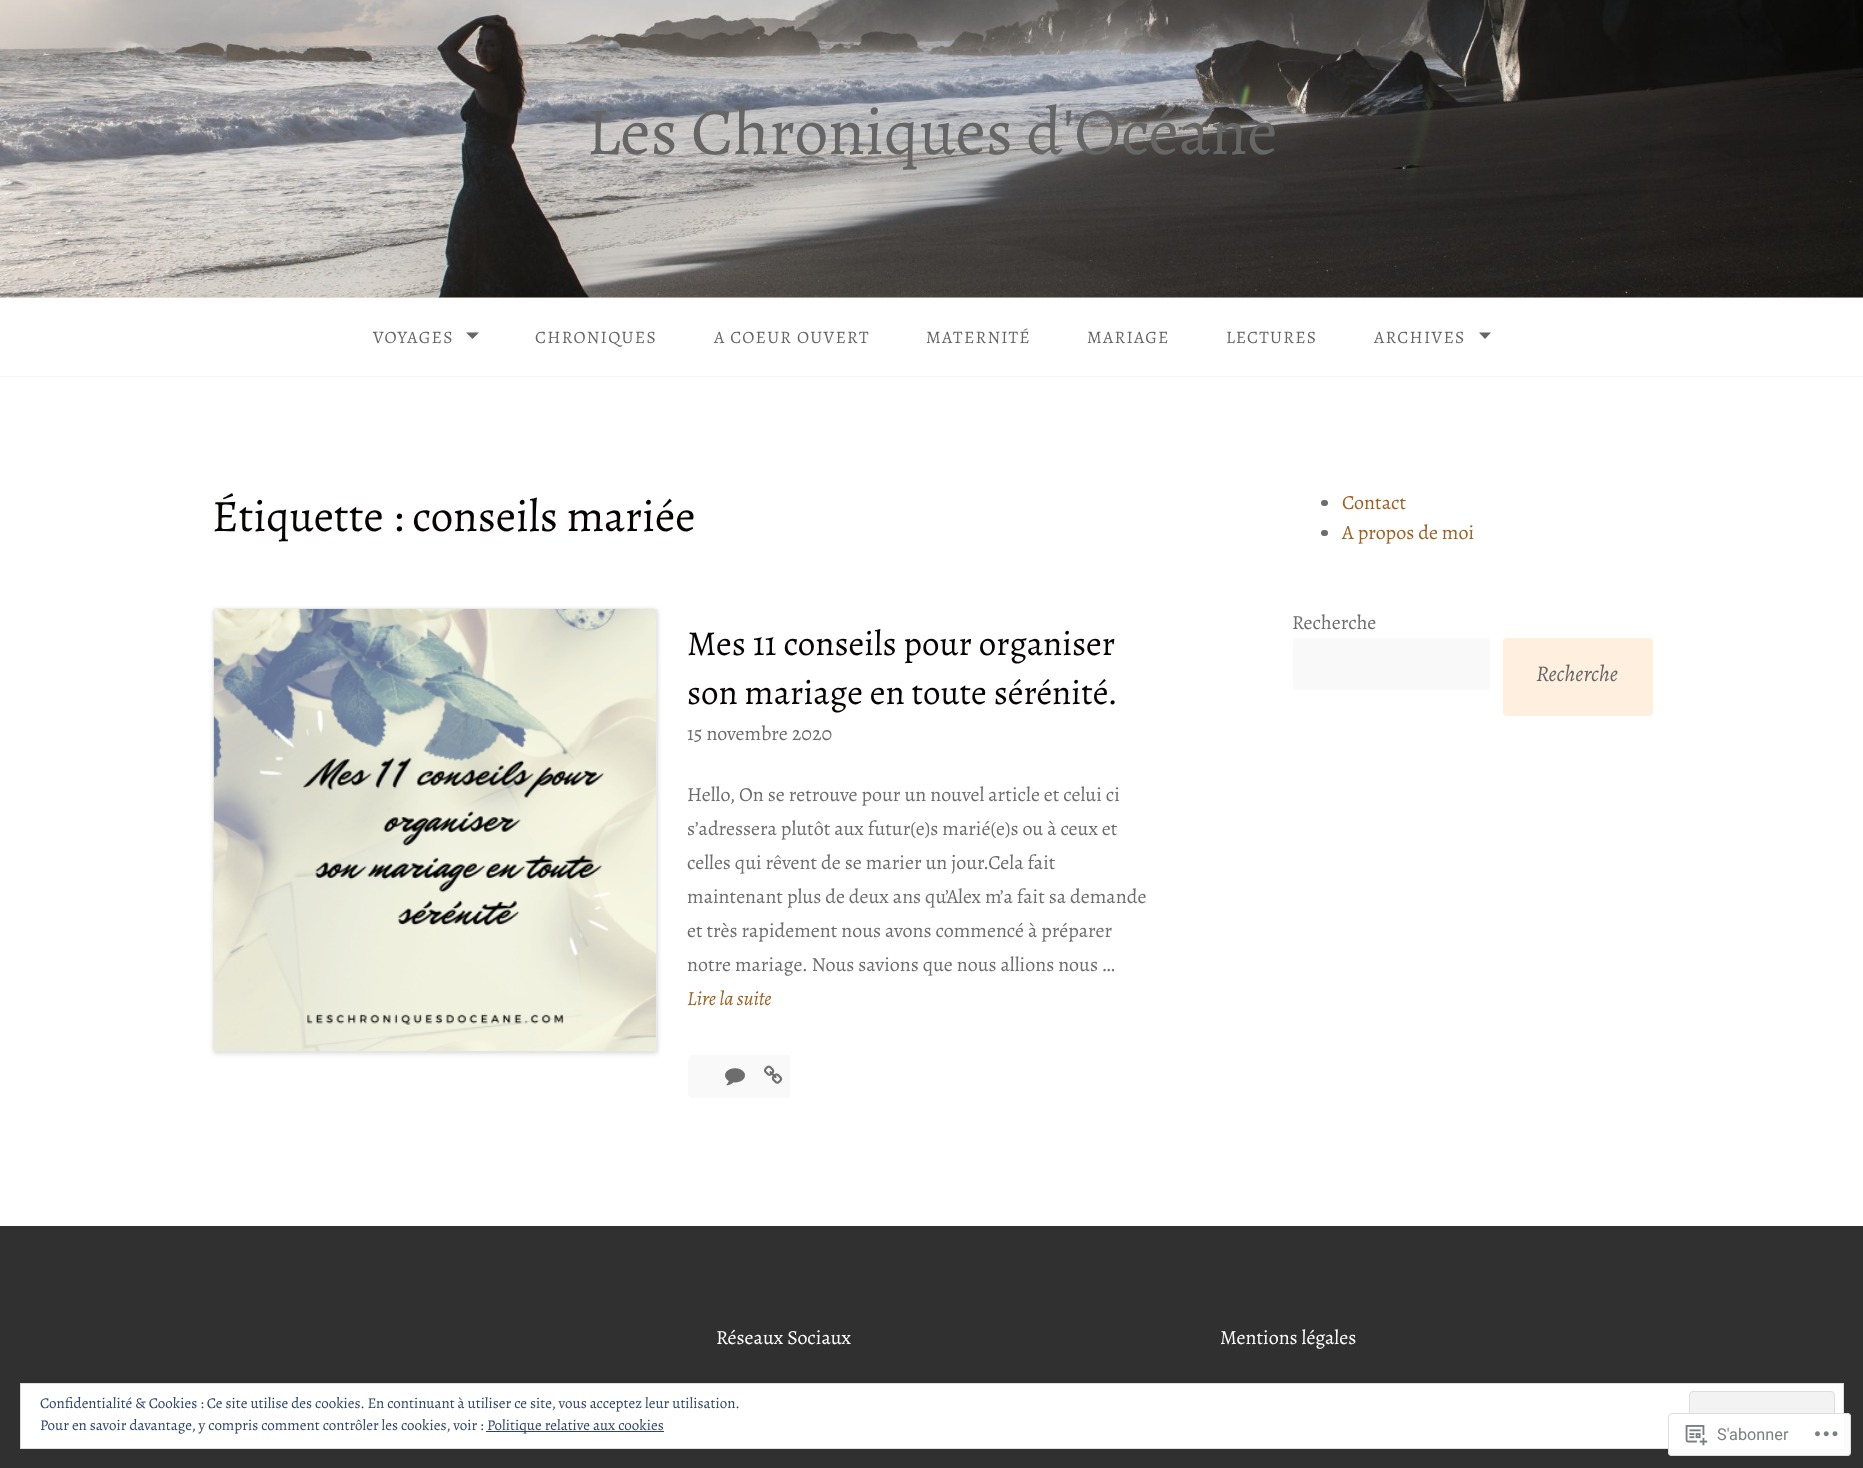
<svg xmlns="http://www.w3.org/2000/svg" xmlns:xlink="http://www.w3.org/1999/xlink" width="1863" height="1468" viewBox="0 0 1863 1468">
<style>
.cls-1{font:67.5px Alegreya;fill:#666666}
.cls-2{font:17.5px Alegreya;letter-spacing:1.25px;fill:#666666}
.cls-3{font:45px Alegreya;fill:#080303}
.cls-4{font:35px Alegreya;fill:#080303}
.cls-5{font:20px Alegreya;fill:#6d6d6d}
.cls-6{font:italic 20px Alegreya;fill:#9f6021}
.cls-7{font:20px Alegreya;fill:#9f6021}
.cls-8{font:italic 22.5px Alegreya;fill:#666666}
.cls-9{font:20px Alegreya;fill:#ffffff}
.cls-10{font:15px Alegreya;fill:#2e4467}
.cls-11{font:16.25px Roboto;fill:#7b7f84}
</style>
<rect width="100%" height="100%" fill="#ffffff"/>
<rect fill="#feefdf" x="0" y="297" width="1863" height="1"/>
<image xlink:href="image0.png" x="0" y="0" width="1863" height="298"/>
<rect fill="#f5f5f5" x="0" y="376" width="1863" height="1"/>
<path fill="#666666" d="M466 332.5H479L472.5 339Z"/>
<path fill="#666666" d="M1479 332.5H1491L1485 339Z"/>
<rect fill="#000000" fill-opacity="0.12" filter="blur(2px)" x="213" y="609" width="445" height="445" rx="4"/>
<rect fill="none" stroke="#dddddd" stroke-opacity="0.3" x="213.5" y="608.5" width="444" height="444" rx="3.5"/>
<image xlink:href="image1.png" x="213" y="608" width="444" height="443"/>
<path fill="#f9f9f9" d="M692 1055H753V1098H692C690 1098 688 1096 688 1094V1059C688 1057 690 1055 692 1055Z"/>
<rect fill="#f9f9f9" x="753" y="1055" width="37" height="43"/>
<image xlink:href="image2.png" x="725" y="1068" width="20" height="18"/>
<image xlink:href="image3.png" x="764" y="1065" width="19" height="19"/>
<rect fill="#6d6d6d" x="1321" y="500" width="7" height="6" rx="3"/>
<rect fill="#6d6d6d" x="1321" y="530" width="7" height="6" rx="3"/>
<rect fill="#f9f9f9" x="1293" y="638" width="197" height="52" rx="4"/>
<rect fill="#feefdf" x="1503" y="638" width="150" height="78" rx="4"/>
<rect fill="#303030" x="0" y="1226" width="1863" height="242"/>
<rect fill="#ffffff" stroke="#dedede" x="20.5" y="1383.5" width="1823" height="65"/>
<rect fill="#f3f3f3" stroke="#dedede" x="1689.5" y="1391.5" width="145" height="48" rx="3.5"/>
<rect fill="#2e4467" x="486" y="1431" width="178" height="1"/>
<rect fill="#ffffff" fill-opacity="0.98" x="1668" y="1413" width="183" height="43" rx="4"/>
<rect fill="none" stroke="#dcdcde" stroke-opacity="0.98" x="1668.5" y="1413.5" width="182" height="42" rx="3.5"/>
<image xlink:href="image4.png" x="1685" y="1425" width="23" height="21"/>
<image xlink:href="image5.png" x="1815" y="1431" width="23" height="6"/>
<text class="cls-1" x="586" y="154">Les Chroniques d'Océane</text>
<text class="cls-2" x="373" y="343">VOYAGES</text>
<text class="cls-2" x="535" y="343">CHRONIQUES</text>
<text class="cls-2" x="714" y="343">A COEUR OUVERT</text>
<text class="cls-2" x="926" y="343">MATERNITÉ</text>
<text class="cls-2" x="1087" y="343">MARIAGE</text>
<text class="cls-2" x="1226" y="343">LECTURES</text>
<text class="cls-2" x="1374" y="343">ARCHIVES</text>
<text class="cls-3" x="212" y="531">Étiquette : conseils mariée</text>
<text class="cls-4"><tspan x="687" y="655">Mes 11 conseils pour organiser</tspan><tspan x="687" y="704">son mariage en toute sérénité.</tspan></text>
<text class="cls-5" x="687" y="740">15 novembre 2020</text>
<text class="cls-5"><tspan x="687" y="801">Hello, On se retrouve pour un nouvel article et celui ci</tspan><tspan x="687" y="835">s’adressera plutôt aux futur(e)s marié(e)s ou à ceux et</tspan><tspan x="687" y="869">celles qui rêvent de se marier un jour.Cela fait</tspan><tspan x="687" y="903">maintenant plus de deux ans qu’Alex m’a fait sa demande</tspan><tspan x="687" y="937">et très rapidement nous avons commencé à préparer</tspan><tspan x="687" y="971">notre mariage. Nous savions que nous allions nous …</tspan></text>
<text class="cls-6" x="687" y="1005">Lire la suite</text>
<text class="cls-7"><tspan x="1342" y="509">Contact</tspan><tspan x="1342" y="539">A propos de moi</tspan></text>
<text class="cls-5" x="1292" y="629">Recherche</text>
<text class="cls-8" x="1536" y="681">Recherche</text>
<text class="cls-9" x="716" y="1344">Réseaux Sociaux</text>
<text class="cls-9" x="1220" y="1344">Mentions légales</text>
<text class="cls-10"><tspan x="40" y="1408">Confidentialité &amp; Cookies : Ce site utilise des cookies. En continuant à utiliser ce site, vous acceptez leur utilisation.</tspan><tspan x="40" y="1430">Pour en savoir davantage, y compris comment contrôler les cookies, voir :</tspan></text>
<text class="cls-10" x="487" y="1430">Politique relative aux cookies</text>
<text class="cls-11" x="1717" y="1440">S'abonner</text>
</svg>
